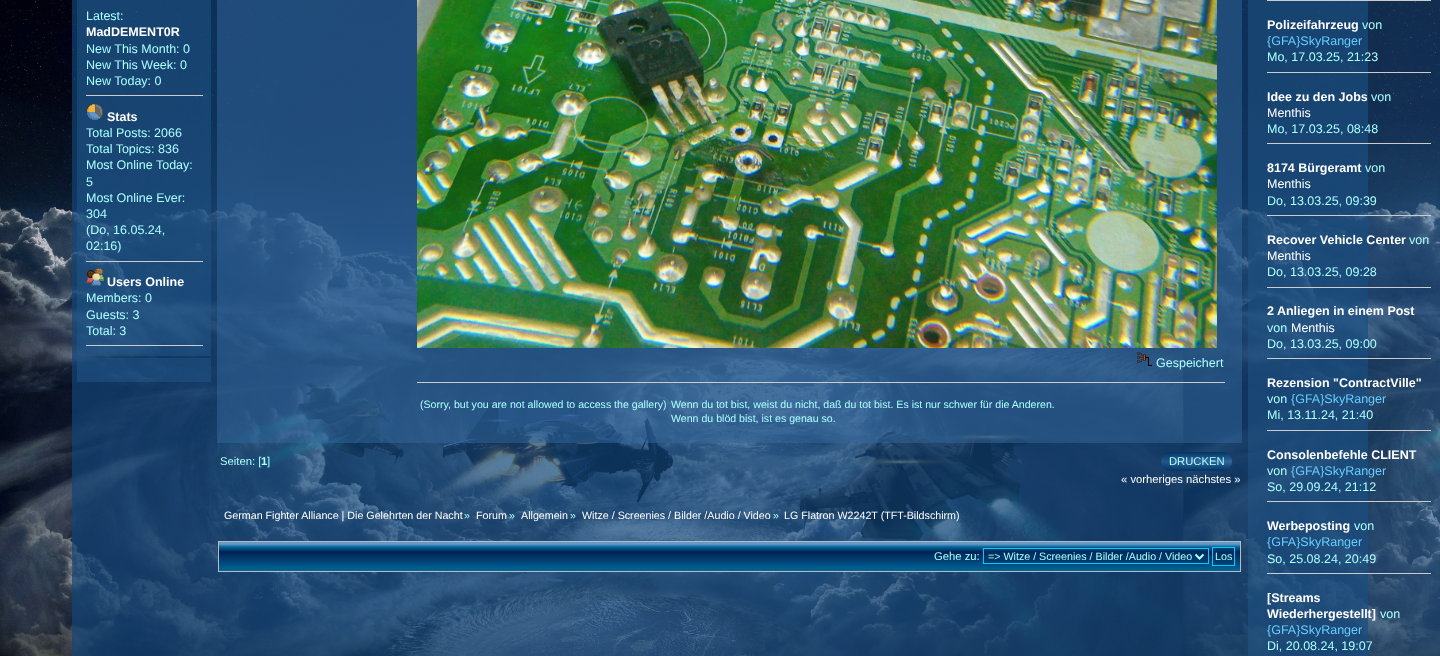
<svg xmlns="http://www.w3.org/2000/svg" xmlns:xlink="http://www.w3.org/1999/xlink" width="1440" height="656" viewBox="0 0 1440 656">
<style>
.cls-1{font:12.5px Liberation Sans;fill:#aaffff}
.cls-2{font:bold 12.5px Liberation Sans;fill:#ffffff}
.cls-3{font:10.6px Liberation Sans;fill:#aaffff}
.cls-4{font:11.25px Liberation Sans;fill:#aaffff}
.cls-5{font:bold 11.25px Liberation Sans;fill:#aaffff}
.cls-6{font:11.25px Liberation Sans;fill:#ffffff}
.cls-7{font:10.7px Liberation Sans;fill:#ffffff}
.cls-8{font:10.7px Liberation Sans;fill:#aaffff}
.cls-9{font:12.5px Liberation Sans;fill:#66ccff}
.cls-10{font:12.5px Liberation Sans;fill:#ffffff}
</style>
<defs>
<linearGradient id="g1" gradientUnits="userSpaceOnUse" x1="1197" y1="471" x2="1197" y2="452"><stop offset="0" stop-color="#003366"/><stop offset="0.5" stop-color="#225588"/><stop offset="1" stop-color="#003366"/></linearGradient>
<linearGradient id="g2" gradientUnits="userSpaceOnUse" x1="1201" y1="471" x2="1201" y2="452"><stop offset="0" stop-color="#003366"/><stop offset="0.5" stop-color="#336699"/><stop offset="1" stop-color="#003366"/></linearGradient>
<linearGradient id="g3" gradientUnits="userSpaceOnUse" x1="730" y1="542" x2="730" y2="571"><stop offset="0.07" stop-color="#6699cc"/><stop offset="0.17" stop-color="#006699"/><stop offset="0.34" stop-color="#002255"/><stop offset="1" stop-color="#006699"/></linearGradient>
</defs>
<rect width="100%" height="100%" fill="#ffffff"/>
<image xlink:href="image0.png" x="0" y="0" width="1440" height="656"/>
<rect fill="#225588" fill-opacity="0.5" x="77" y="0" width="134" height="356"/>
<rect fill="#cccccc" x="86" y="95" width="117" height="1"/>
<image xlink:href="image1.png" x="87" y="104" width="16" height="16"/>
<rect fill="#cccccc" x="86" y="261" width="117" height="1"/>
<image xlink:href="image2.png" x="86" y="268" width="18" height="18"/>
<rect fill="#cccccc" x="86" y="345" width="117" height="1"/>
<rect fill="#225588" fill-opacity="0.5" x="77" y="358" width="134" height="24"/>
<rect fill="#336699" fill-opacity="0.5" x="217" y="0" width="1025" height="443"/>
<image xlink:href="image3.png" x="417" y="0" width="800" height="348"/>
<image xlink:href="image4.png" x="1137" y="352" width="15" height="14"/>
<rect fill="#cccccc" x="417" y="382" width="808" height="1"/>
<rect fill="url(#g1)" x="1161" y="452" width="71" height="19" rx="9.5"/>
<rect fill="url(#g2)" x="1169" y="452" width="63" height="19" rx="9.5"/>
<rect fill="url(#g3)" x="219" y="542" width="1021" height="29"/>
<rect fill="none" stroke="#bbbbbb" x="218.5" y="541.5" width="1022" height="30"/>
<rect fill="#003366" fill-opacity="0.5" stroke="#00ccff" x="983.5" y="548.5" width="225" height="15"/>
<path fill="none" stroke="#aaffff" stroke-width="2" d="M1195.5 554.5L1199.5 558.5L1203.5 554.5"/>
<rect fill="#003366" fill-opacity="0.5" stroke="#00ccff" x="1212.5" y="547.5" width="22" height="18"/>
<rect fill="#225588" fill-opacity="0.5" x="1248" y="0" width="192" height="656"/>
<rect fill="#cccccc" x="1267" y="0" width="164" height="1"/>
<rect fill="#cccccc" x="1267" y="72" width="164" height="1"/>
<rect fill="#cccccc" x="1267" y="143" width="164" height="1"/>
<rect fill="#cccccc" x="1267" y="215" width="164" height="1"/>
<rect fill="#cccccc" x="1267" y="287" width="164" height="1"/>
<rect fill="#cccccc" x="1267" y="358" width="164" height="1"/>
<rect fill="#cccccc" x="1267" y="430" width="164" height="1"/>
<rect fill="#cccccc" x="1267" y="501" width="164" height="1"/>
<rect fill="#cccccc" x="1267" y="573" width="164" height="1"/>
<text class="cls-1" x="86" y="20">Latest:</text>
<text class="cls-2" x="86" y="36">MadDEMENT0R</text>
<text class="cls-1"><tspan x="86" y="53">New This Month: 0</tspan><tspan x="86" y="69">New This Week: 0</tspan><tspan x="86" y="85">New Today: 0</tspan></text>
<text class="cls-2" x="107" y="121">Stats</text>
<text class="cls-1"><tspan x="86" y="137">Total Posts: 2066</tspan><tspan x="86" y="153">Total Topics: 836</tspan><tspan x="86" y="169">Most Online Today:</tspan><tspan x="86" y="186">5</tspan><tspan x="86" y="202">Most Online Ever:</tspan><tspan x="86" y="218">304</tspan><tspan x="86" y="234">(Do, 16.05.24,</tspan><tspan x="86" y="250">02:16)</tspan></text>
<text class="cls-2" x="107" y="286">Users Online</text>
<text class="cls-1"><tspan x="86" y="302">Members: 0</tspan><tspan x="86" y="319">Guests: 3</tspan><tspan x="86" y="335">Total: 3</tspan></text>
<text class="cls-1" x="1156" y="367">Gespeichert</text>
<text class="cls-3" x="420" y="408">(Sorry, but you are not allowed to access the gallery)</text>
<text class="cls-3"><tspan x="671" y="408">Wenn du tot bist, weist du nicht, daß du tot bist. Es ist nur schwer für die Anderen.</tspan><tspan x="671" y="422">Wenn du blöd bist, ist es genau so.</tspan></text>
<text class="cls-4" x="220" y="465">Seiten: [</text>
<text class="cls-5" x="261" y="465">1</text>
<text class="cls-4" x="267" y="465">]</text>
<text class="cls-4" x="1169" y="465">DRUCKEN</text>
<text class="cls-6" x="1121" y="483">« vorheriges nächstes »</text>
<text class="cls-7" x="224" y="519">German Fighter Alliance | Die Gelehrten der Nacht</text>
<text class="cls-8" x="464" y="519">»</text>
<text class="cls-7" x="476" y="519">Forum</text>
<text class="cls-8" x="509" y="519">»</text>
<text class="cls-7" x="521" y="519">Allgemein</text>
<text class="cls-8" x="570" y="519">»</text>
<text class="cls-7" x="582" y="519">Witze / Screenies / Bilder /Audio / Video</text>
<text class="cls-8" x="773" y="519">»</text>
<text class="cls-7" x="784" y="519">LG Flatron W2242T (TFT-Bildschirm)</text>
<text class="cls-4" x="934" y="560">Gehe zu:</text>
<text class="cls-8" x="988" y="560">=&gt; Witze / Screenies / Bilder /Audio / Video</text>
<text class="cls-8" x="1215" y="560">Los</text>
<text class="cls-2" x="1267" y="29">Polizeifahrzeug</text>
<text class="cls-1" x="1362" y="29">von</text>
<text class="cls-9" x="1267" y="45">{GFA}SkyRanger</text>
<text class="cls-1" x="1267" y="61">Mo, 17.03.25, 21:23</text>
<text class="cls-2" x="1267" y="101">Idee zu den Jobs</text>
<text class="cls-1" x="1371" y="101">von</text>
<text class="cls-10" x="1267" y="117">Menthis</text>
<text class="cls-1" x="1267" y="133">Mo, 17.03.25, 08:48</text>
<text class="cls-2" x="1267" y="172">8174 Bürgeramt</text>
<text class="cls-1" x="1365" y="172">von</text>
<text class="cls-10" x="1267" y="188">Menthis</text>
<text class="cls-1" x="1267" y="205">Do, 13.03.25, 09:39</text>
<text class="cls-2" x="1267" y="244">Recover Vehicle Center</text>
<text class="cls-1" x="1409" y="244">von</text>
<text class="cls-10" x="1267" y="260">Menthis</text>
<text class="cls-1" x="1267" y="276">Do, 13.03.25, 09:28</text>
<text class="cls-2" x="1267" y="315">2 Anliegen in einem Post</text>
<text class="cls-1" x="1267" y="332">von</text>
<text class="cls-10" x="1291" y="332">Menthis</text>
<text class="cls-1" x="1267" y="348">Do, 13.03.25, 09:00</text>
<text class="cls-2" x="1267" y="387">Rezension "ContractVille"</text>
<text class="cls-1" x="1267" y="403">von</text>
<text class="cls-9" x="1291" y="403">{GFA}SkyRanger</text>
<text class="cls-1" x="1267" y="419">Mi, 13.11.24, 21:40</text>
<text class="cls-2" x="1267" y="459">Consolenbefehle CLIENT</text>
<text class="cls-1" x="1267" y="475">von</text>
<text class="cls-9" x="1291" y="475">{GFA}SkyRanger</text>
<text class="cls-1" x="1267" y="491">So, 29.09.24, 21:12</text>
<text class="cls-2" x="1267" y="530">Werbeposting</text>
<text class="cls-1" x="1354" y="530">von</text>
<text class="cls-9" x="1267" y="546">{GFA}SkyRanger</text>
<text class="cls-1" x="1267" y="563">So, 25.08.24, 20:49</text>
<text class="cls-2"><tspan x="1267" y="602">[Streams</tspan><tspan x="1267" y="618">Wiederhergestellt]</tspan></text>
<text class="cls-1" x="1380" y="618">von</text>
<text class="cls-9" x="1267" y="634">{GFA}SkyRanger</text>
<text class="cls-1" x="1267" y="650">Di, 20.08.24, 19:07</text>
</svg>
